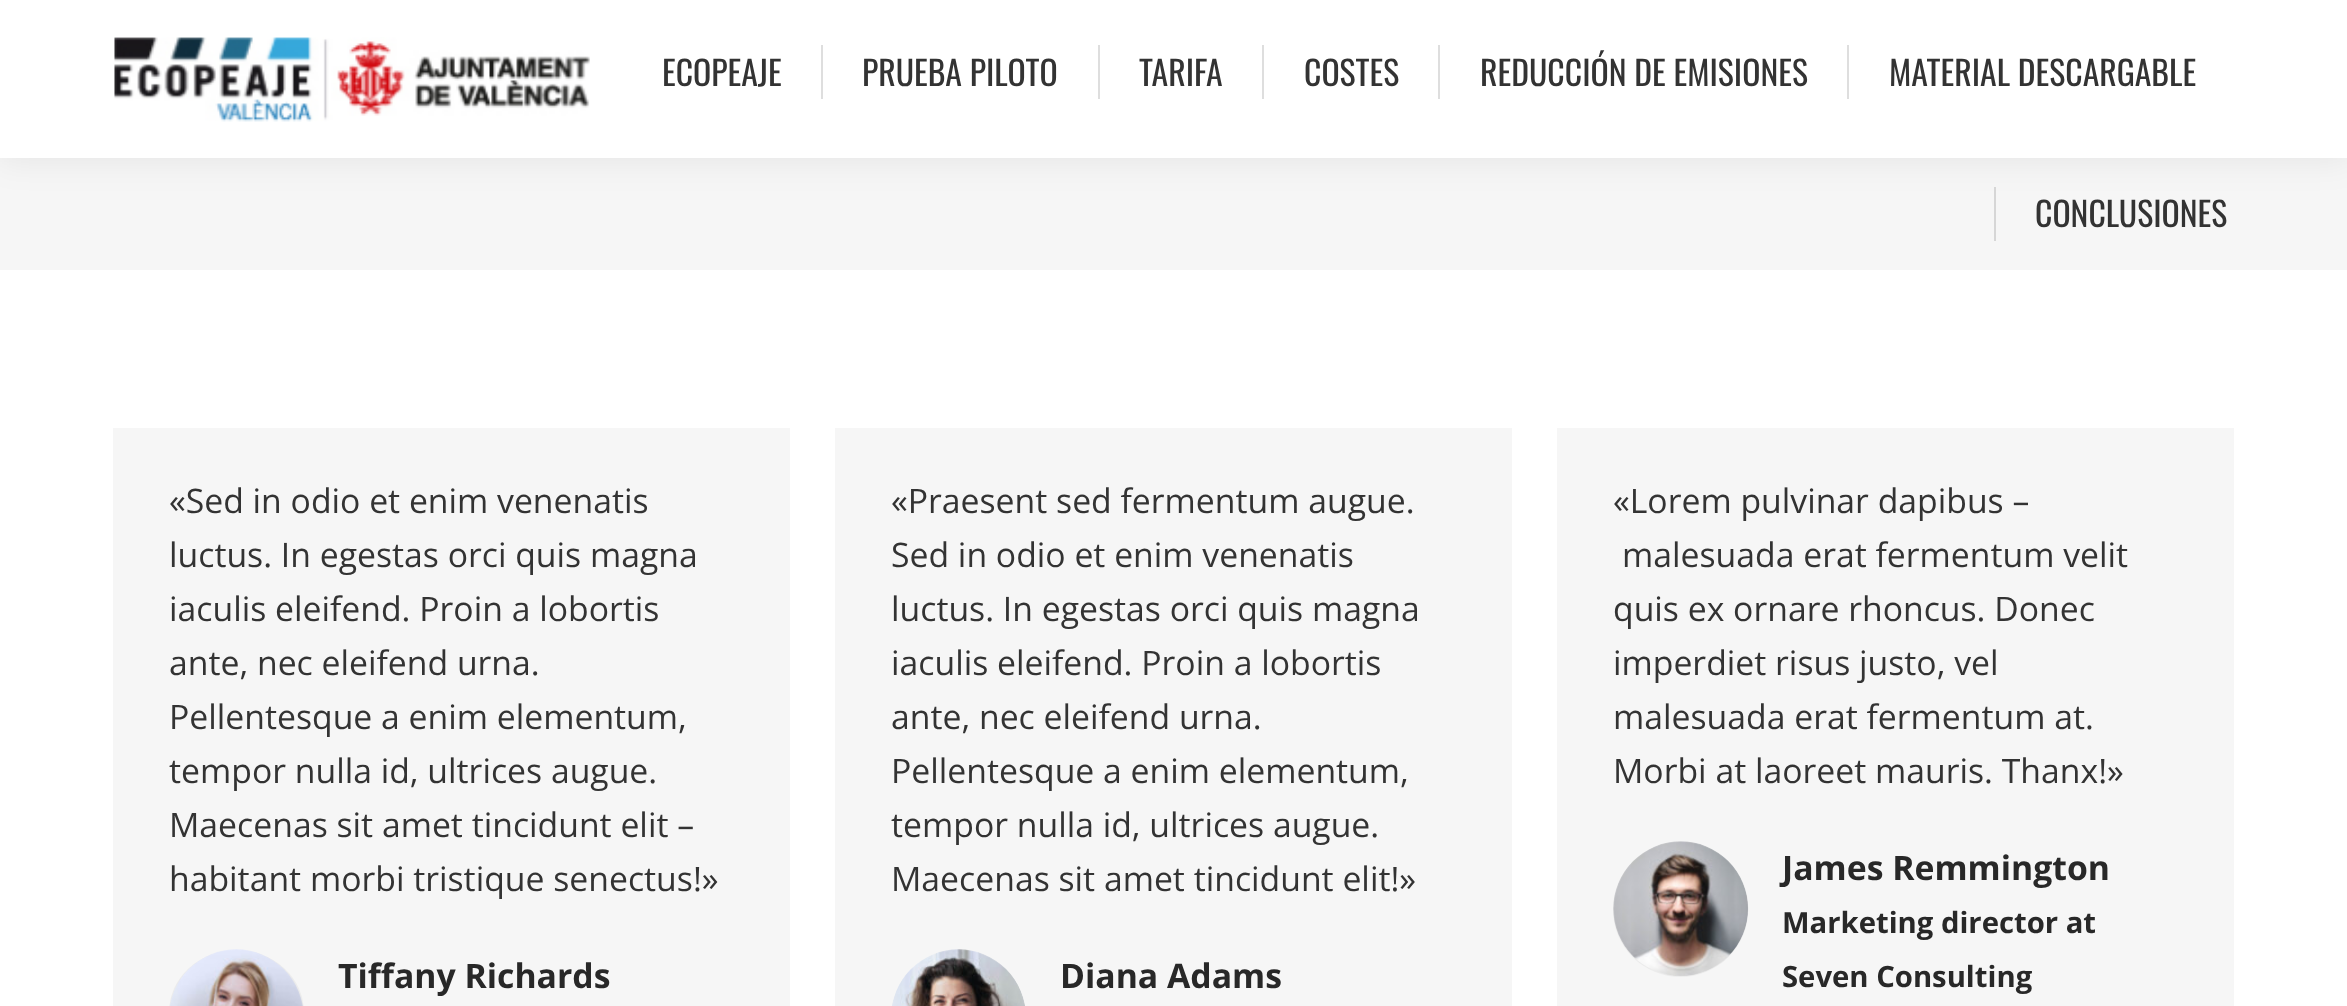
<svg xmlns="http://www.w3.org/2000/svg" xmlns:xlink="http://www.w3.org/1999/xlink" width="2347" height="1006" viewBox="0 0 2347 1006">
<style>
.cls-1{font:33.75px Oswald;fill:#333333}
.cls-2{font:33.75px Open Sans;fill:#333333}
.cls-3{font:bold 33.75px Open Sans;fill:#282828}
.cls-4{font:bold 29.25px Open Sans;fill:#282828}
</style>
<rect width="100%" height="100%" fill="#ffffff"/>
<rect fill="#f6f6f6" x="0" y="158" width="2347" height="112"/>
<rect fill="#000000" fill-opacity="0.07" filter="blur(17px)" x="-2" y="-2" width="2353" height="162"/>
<rect fill="#ffffff" x="0" y="0" width="2347" height="158"/>
<image xlink:href="image0.png" x="114" y="37" width="476" height="85"/>
<rect fill="#dedede" x="821" y="45" width="2" height="54"/>
<rect fill="#dedede" x="1098" y="45" width="2" height="54"/>
<rect fill="#dedede" x="1262" y="45" width="2" height="54"/>
<rect fill="#dedede" x="1438" y="45" width="2" height="54"/>
<rect fill="#dedede" x="1847" y="45" width="2" height="54"/>
<rect fill="#d6d6d6" x="1994" y="187" width="2" height="54"/>
<rect fill="#f6f6f6" x="113" y="428" width="677" height="578"/>
<rect fill="#ececec" x="169" y="950" width="135" height="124" rx="67.5"/>
<image xlink:href="image1.png" x="170" y="949" width="133" height="57"/>
<rect fill="#f6f6f6" x="835" y="428" width="677" height="578"/>
<image xlink:href="image2.png" x="892" y="949" width="133" height="57"/>
<rect fill="#f6f6f6" x="1557" y="428" width="677" height="578"/>
<circle fill="#ececec" cx="1680.5" cy="909.5" r="67.5"/>
<image xlink:href="image3.png" x="1613" y="841" width="136" height="135"/>
<text class="cls-1" x="662" y="86">ECOPEAJE</text>
<text class="cls-1" x="862" y="86">PRUEBA PILOTO</text>
<text class="cls-1" x="1139" y="86">TARIFA</text>
<text class="cls-1" x="1304" y="86">COSTES</text>
<text class="cls-1" x="1480" y="86">REDUCCIÓN DE EMISIONES</text>
<text class="cls-1" x="1889" y="86">MATERIAL DESCARGABLE</text>
<text class="cls-1" x="2035" y="227">CONCLUSIONES</text>
<text class="cls-2"><tspan x="169" y="513">«Sed in odio et enim venenatis</tspan><tspan x="169" y="567">luctus. In egestas orci quis magna</tspan><tspan x="169" y="621">iaculis eleifend. Proin a lobortis</tspan><tspan x="169" y="675">ante, nec eleifend urna.</tspan><tspan x="169" y="729">Pellentesque a enim elementum,</tspan><tspan x="169" y="783">tempor nulla id, ultrices augue.</tspan><tspan x="169" y="837">Maecenas sit amet tincidunt elit –</tspan><tspan x="169" y="891">habitant morbi tristique senectus!»</tspan></text>
<text class="cls-3" x="338" y="988">Tiffany Richards</text>
<text class="cls-2"><tspan x="891" y="513">«Praesent sed fermentum augue.</tspan><tspan x="891" y="567">Sed in odio et enim venenatis</tspan><tspan x="891" y="621">luctus. In egestas orci quis magna</tspan><tspan x="891" y="675">iaculis eleifend. Proin a lobortis</tspan><tspan x="891" y="729">ante, nec eleifend urna.</tspan><tspan x="891" y="783">Pellentesque a enim elementum,</tspan><tspan x="891" y="837">tempor nulla id, ultrices augue.</tspan><tspan x="891" y="891">Maecenas sit amet tincidunt elit!»</tspan></text>
<text class="cls-3" x="1060" y="988">Diana Adams</text>
<text class="cls-2" x="1613" y="513">«Lorem pulvinar dapibus –</text>
<text class="cls-2" x="1622" y="567">malesuada erat fermentum velit</text>
<text class="cls-2"><tspan x="1613" y="621">quis ex ornare rhoncus. Donec</tspan><tspan x="1613" y="675">imperdiet risus justo, vel</tspan><tspan x="1613" y="729">malesuada erat fermentum at.</tspan><tspan x="1613" y="783">Morbi at laoreet mauris. Thanx!»</tspan></text>
<text class="cls-3" x="1782" y="880">James Remmington</text>
<text class="cls-4"><tspan x="1782" y="933">Marketing director at</tspan><tspan x="1782" y="987">Seven Consulting</tspan></text>
</svg>
